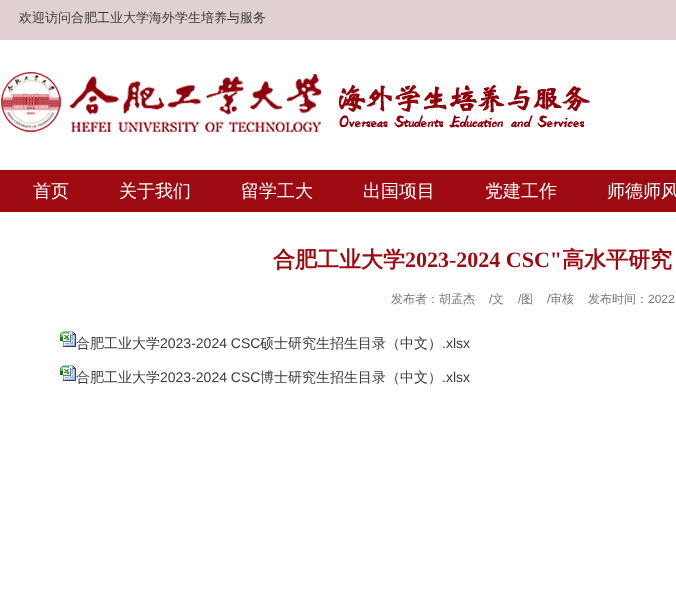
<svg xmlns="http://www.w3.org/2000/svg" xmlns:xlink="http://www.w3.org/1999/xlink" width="676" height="607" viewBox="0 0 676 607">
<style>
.cls-1{font:500 13px WenQuanYi Zen Hei;fill:#3b3b3b}
.cls-2{font:500 18px WenQuanYi Zen Hei;fill:#ffffff}
.cls-3{font:bold 22px WenQuanYi Zen Hei;fill:#9d0a12}
.cls-4{font:bold 22px Liberation Serif;fill:#9d0a12}
.cls-5{font:500 12px WenQuanYi Zen Hei;fill:#787878}
.cls-6{font:12px Liberation Sans;fill:#787878}
.cls-7{font:500 14px WenQuanYi Zen Hei;fill:#3b3b3b}
.cls-8{font:14px Liberation Sans;fill:#3b3b3b}
</style>
<rect width="100%" height="100%" fill="#ffffff"/>
<rect fill="#e0d0d1" x="0" y="0" width="676" height="40"/>
<image xlink:href="image0.png" x="1" y="72" width="589" height="60"/>
<rect fill="#9d0a12" x="0" y="170" width="676" height="42"/>
<image xlink:href="image1.png" x="60" y="331" width="16" height="16"/>
<image xlink:href="image1.png" x="60" y="365" width="16" height="16"/>
<text class="cls-1" x="19" y="22">欢迎访问合肥工业大学海外学生培养与服务</text>
<text class="cls-2" x="33" y="197">首页</text>
<text class="cls-2" x="119" y="197">关于我们</text>
<text class="cls-2" x="241" y="197">留学工大</text>
<text class="cls-2" x="363" y="197">出国项目</text>
<text class="cls-2" x="485" y="197">党建工作</text>
<text class="cls-2" x="607" y="197">师德师风</text>
<text class="cls-3" x="273" y="267">合肥工业大学</text>
<text class="cls-4" x="405" y="267">2023-2024 CSC"</text>
<text class="cls-3" x="562" y="267">高水平研究</text>
<text class="cls-5" x="391" y="303">发布者：胡孟杰</text>
<text class="cls-6" x="489" y="303">/</text>
<text class="cls-5" x="492" y="303">文</text>
<text class="cls-6" x="518" y="303">/</text>
<text class="cls-5" x="521" y="303">图</text>
<text class="cls-6" x="547" y="303">/</text>
<text class="cls-5" x="550" y="303">审核</text>
<text class="cls-5" x="588" y="303">发布时间：</text>
<text class="cls-6" x="648" y="303">2022</text>
<text class="cls-7" x="76" y="348">合肥工业大学</text>
<text class="cls-8" x="160" y="348">2023-2024 CSC</text>
<text class="cls-7" x="260" y="348">硕士研究生招生目录（中文）</text>
<text class="cls-8" x="442" y="348">.xlsx</text>
<text class="cls-7" x="76" y="382">合肥工业大学</text>
<text class="cls-8" x="160" y="382">2023-2024 CSC</text>
<text class="cls-7" x="260" y="382">博士研究生招生目录（中文）</text>
<text class="cls-8" x="442" y="382">.xlsx</text>
</svg>
